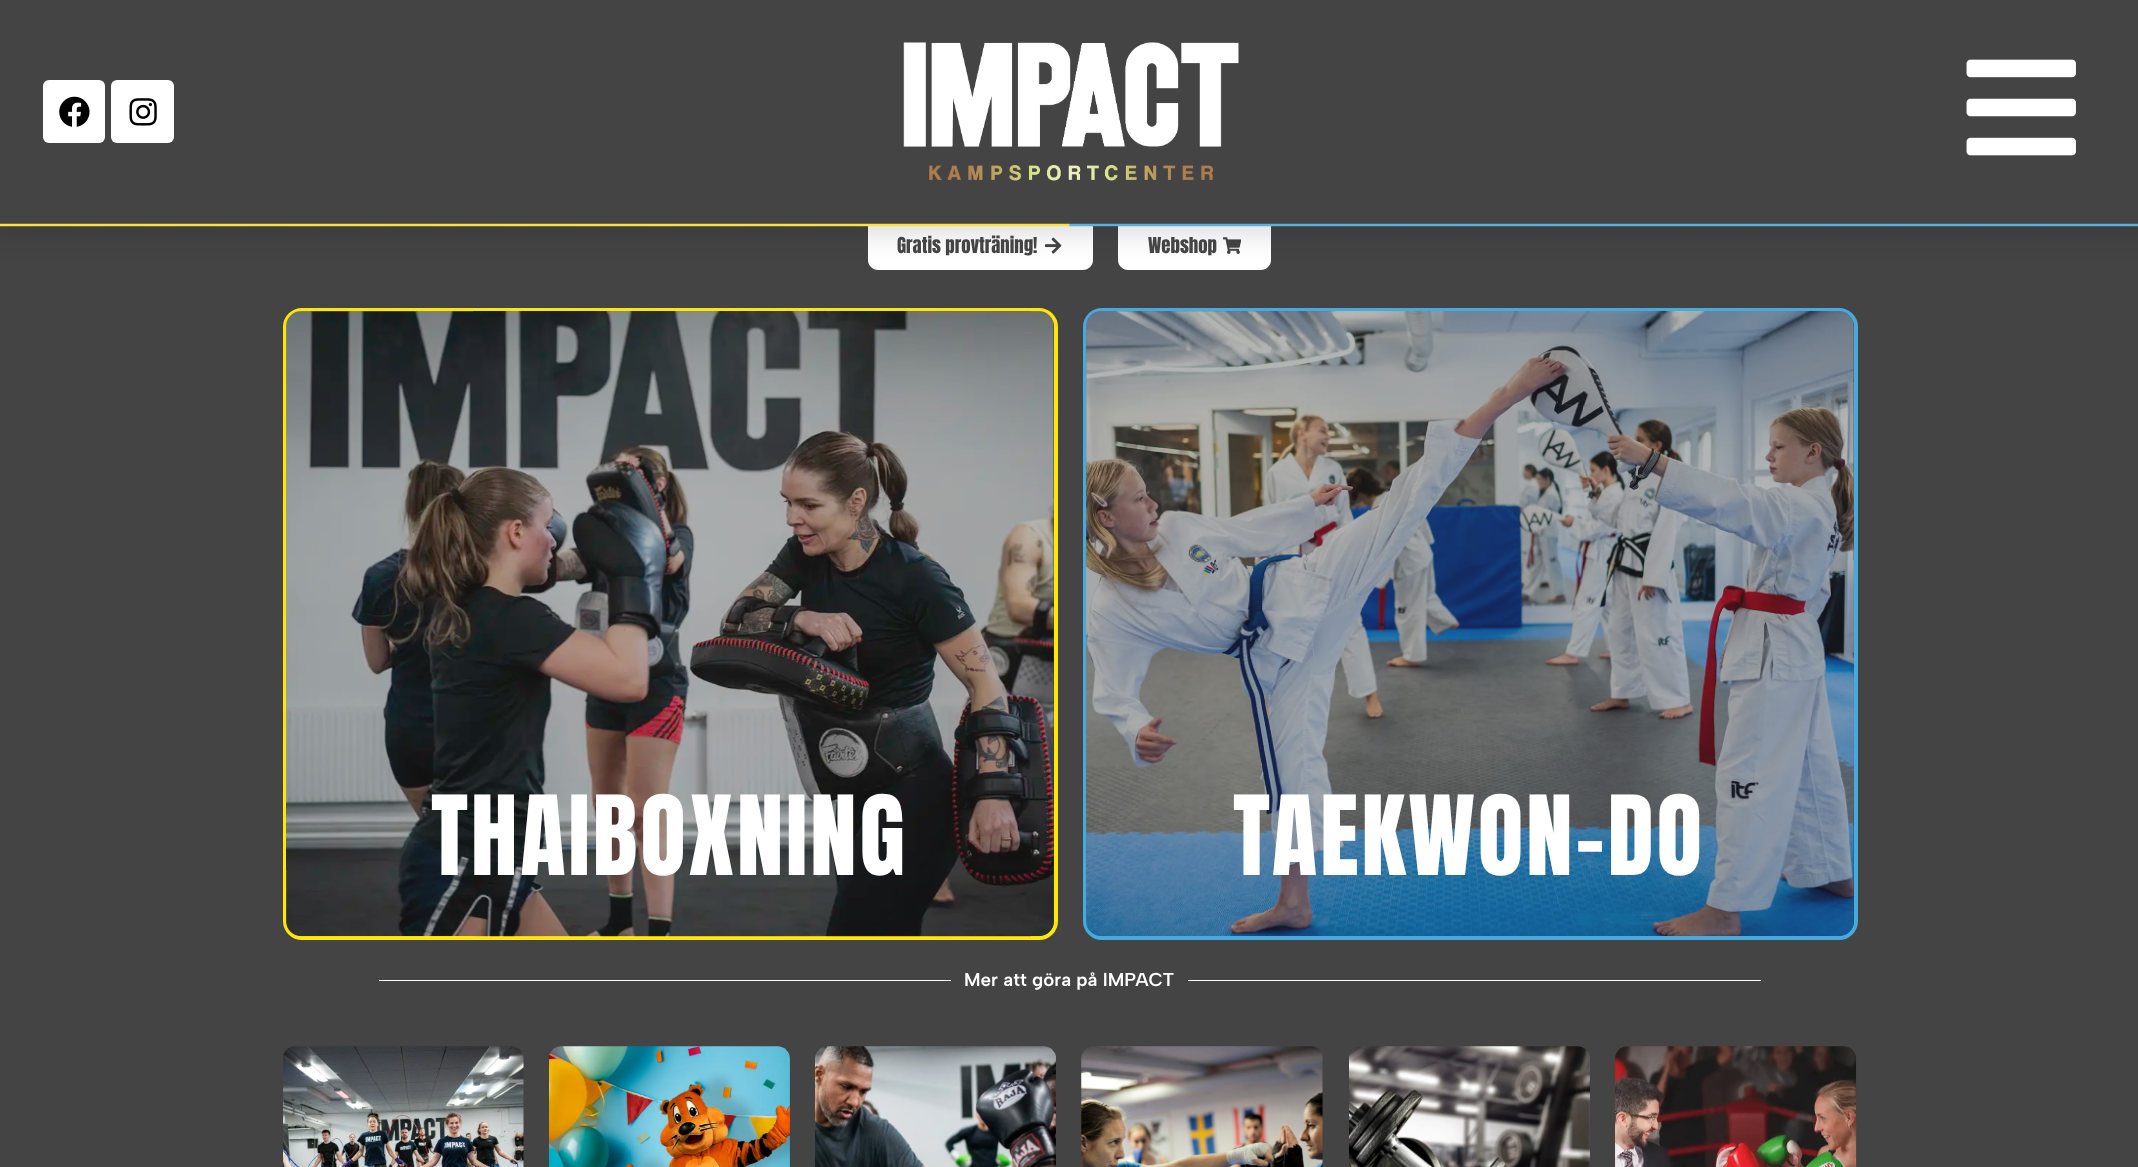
<svg xmlns="http://www.w3.org/2000/svg" xmlns:xlink="http://www.w3.org/1999/xlink" width="2138" height="1167" viewBox="0 0 2138 1167">
<style>
.cls-1{font:18.75px Anton;fill:#444444}
.cls-2{font:93.75px Anton;letter-spacing:2.75px;fill:#ffffff}
.cls-3{font:600 18.75px Albert Sans;fill:#ffffff}
</style>
<rect width="100%" height="100%" fill="#444444"/>
<path fill="#ffffff" d="M868 221H1093V260C1093 265.5 1088.5 270 1083 270H878C872.5 270 868 265.5 868 260Z"/>
<image xlink:href="image5.png" x="1044" y="237" width="18" height="17"/>
<path fill="#ffffff" d="M1118 221H1271V260C1271 265.5 1266.5 270 1261 270H1128C1122.5 270 1118 265.5 1118 260Z"/>
<image xlink:href="image6.png" x="1223" y="237" width="18" height="17"/>
<rect fill="#000000" fill-opacity="0.12" filter="blur(13px)" x="-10" y="-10" width="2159" height="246"/>
<rect fill="#444444" x="0" y="0" width="2138" height="224"/>
<image xlink:href="image0.png" x="0" y="223" width="2138" height="4"/>
<rect fill="#ffffff" x="43" y="80" width="62" height="63" rx="6"/>
<image xlink:href="image1.png" x="59" y="96" width="31" height="31"/>
<rect fill="#ffffff" x="111" y="80" width="63" height="63" rx="6"/>
<image xlink:href="image2.png" x="129" y="98" width="28" height="28"/>
<image xlink:href="image3.png" x="903" y="42" width="336" height="139"/>
<image xlink:href="image4.png" x="1966" y="59" width="110" height="97"/>
<rect fill="none" stroke="#ffe607" stroke-width="4" x="285" y="310" width="771" height="628" rx="17"/>
<image xlink:href="image7.png" x="286" y="311" width="768" height="626"/>
<rect fill="#333333" fill-opacity="0.36" x="286" y="311" width="768" height="625" rx="15"/>
<rect fill="none" stroke="#47aadd" stroke-width="4" x="1085" y="310" width="771" height="628" rx="17"/>
<image xlink:href="image8.png" x="1086" y="311" width="768" height="625"/>
<rect fill="#333333" fill-opacity="0.36" x="1086" y="311" width="768" height="625" rx="15"/>
<rect fill="#ffffff" x="379" y="980" width="572" height="1"/>
<rect fill="#ffffff" x="1188" y="980" width="573" height="1"/>
<image xlink:href="image9.png" x="283" y="1046" width="241" height="121"/>
<image xlink:href="image10.png" x="549" y="1046" width="241" height="121"/>
<image xlink:href="image11.png" x="815" y="1046" width="241" height="121"/>
<image xlink:href="image12.png" x="1081" y="1046" width="242" height="121"/>
<image xlink:href="image13.png" x="1349" y="1046" width="241" height="121"/>
<image xlink:href="image14.png" x="1615" y="1046" width="242" height="121"/>
<text class="cls-1" x="897" y="253">Gratis provträning!</text>
<text class="cls-1" x="1148" y="253">Webshop</text>
<text class="cls-2" x="431" y="875">THAIBOXNING</text>
<text class="cls-2" x="1233" y="875">TAEKWON-DO</text>
<text class="cls-3" x="964" y="986">Mer att göra på IMPACT</text>
</svg>
